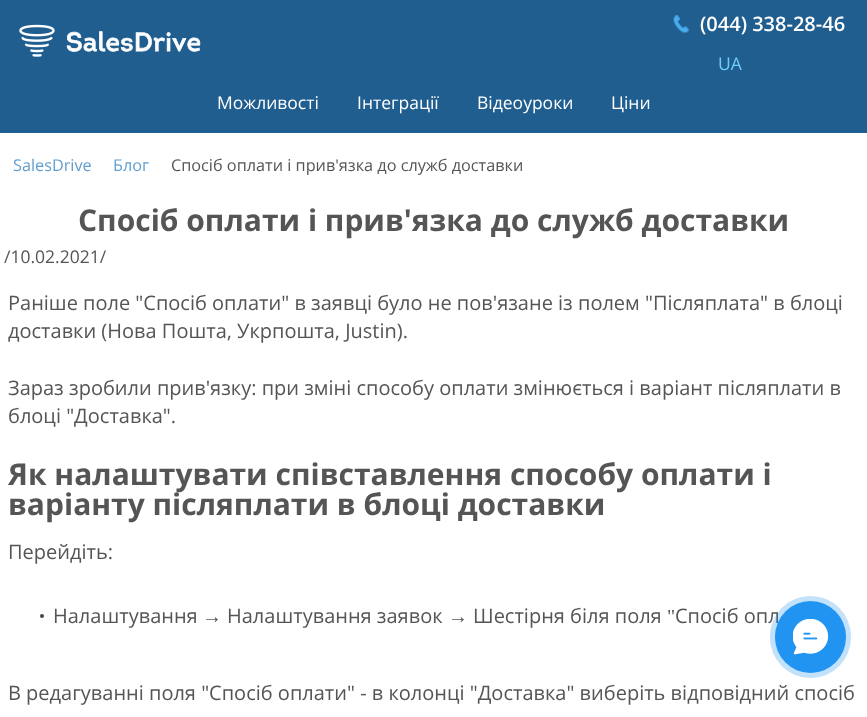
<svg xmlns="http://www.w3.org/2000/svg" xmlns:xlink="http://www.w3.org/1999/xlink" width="867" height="717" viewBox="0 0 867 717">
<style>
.cls-1{font:600 20px Open Sans;fill:#ffffff}
.cls-2{font:17.5px Open Sans;fill:#6fcfff}
.cls-3{font:17.5px Open Sans;fill:#ffffff}
.cls-4{font:16.25px Open Sans;fill:#629ecf}
.cls-5{font:16.25px Open Sans;fill:#555555}
.cls-6{font:bold 30px Open Sans;fill:#555555}
.cls-7{font:17.5px Open Sans;fill:#555555}
.cls-8{font:20px Open Sans;fill:#555555}
.cls-9{font:20px Liberation Serif;fill:#555555}
</style>
<rect width="100%" height="100%" fill="#ffffff"/>
<rect fill="#205e90" x="0" y="0" width="867" height="133"/>
<image xlink:href="image0.png" x="19" y="24" width="36" height="33"/>
<image xlink:href="image1.png" x="66" y="31" width="135" height="21"/>
<image xlink:href="image2.png" x="673" y="15" width="16" height="18"/>
<circle fill="#464646" cx="42" cy="616" r="2"/>
<text class="cls-1" x="700" y="31">(044) 338-28-46</text>
<text class="cls-2" x="718" y="70">UA</text>
<text class="cls-3" x="217" y="109">Можливості</text>
<text class="cls-3" x="357" y="109">Інтеграції</text>
<text class="cls-3" x="477" y="109">Відеоуроки</text>
<text class="cls-3" x="611" y="109">Ціни</text>
<text class="cls-4" x="13" y="171">SalesDrive</text>
<text class="cls-4" x="113" y="171">Блог</text>
<text class="cls-5" x="171" y="171">Спосіб оплати і прив'язка до служб доставки</text>
<text class="cls-6" x="78" y="231">Спосіб оплати і прив'язка до служб доставки</text>
<text class="cls-7" x="4" y="263">/10.02.2021/</text>
<text class="cls-8"><tspan x="8" y="310">Раніше поле "Спосіб оплати" в заявці було не пов'язане із полем "Післяплата" в блоці</tspan><tspan x="8" y="338">доставки (Нова Пошта, Укрпошта, Justin).</tspan></text>
<text class="cls-8"><tspan x="8" y="395">Зараз зробили прив'язку: при зміні способу оплати змінюється і варіант післяплати в</tspan><tspan x="8" y="423">блоці "Доставка".</tspan></text>
<text class="cls-6"><tspan x="8" y="485">Як налаштувати співставлення способу оплати і</tspan><tspan x="8" y="515">варіанту післяплати в блоці доставки</tspan></text>
<text class="cls-8" x="8" y="559">Перейдіть:</text>
<text class="cls-8" x="53" y="623">Налаштування</text>
<text class="cls-8" x="227" y="623">Налаштування заявок</text>
<text class="cls-8" x="473" y="623">Шестірня біля поля</text>
<text class="cls-9" x="667" y="623">"</text>
<text class="cls-8" x="675" y="623">Спосіб опл</text>
<text class="cls-9" x="202" y="623">→</text>
<text class="cls-9" x="448" y="623">→</text>
<text class="cls-8" x="8" y="700">В редагуванні поля "Спосіб оплати" - в колонці "Доставка" виберіть відповідний спосіб</text>
<rect fill="#2196f3" x="775" y="601" width="71" height="72" rx="35.5"/>
<rect fill="#2196f3" fill-opacity="0.15" x="770" y="596" width="81" height="82" rx="40.5"/>
<rect fill="#2196f3" fill-opacity="0.15" x="770" y="596" width="81" height="82" rx="40.5"/>
<image xlink:href="image3.png" x="793" y="619" width="36" height="36"/>
</svg>
